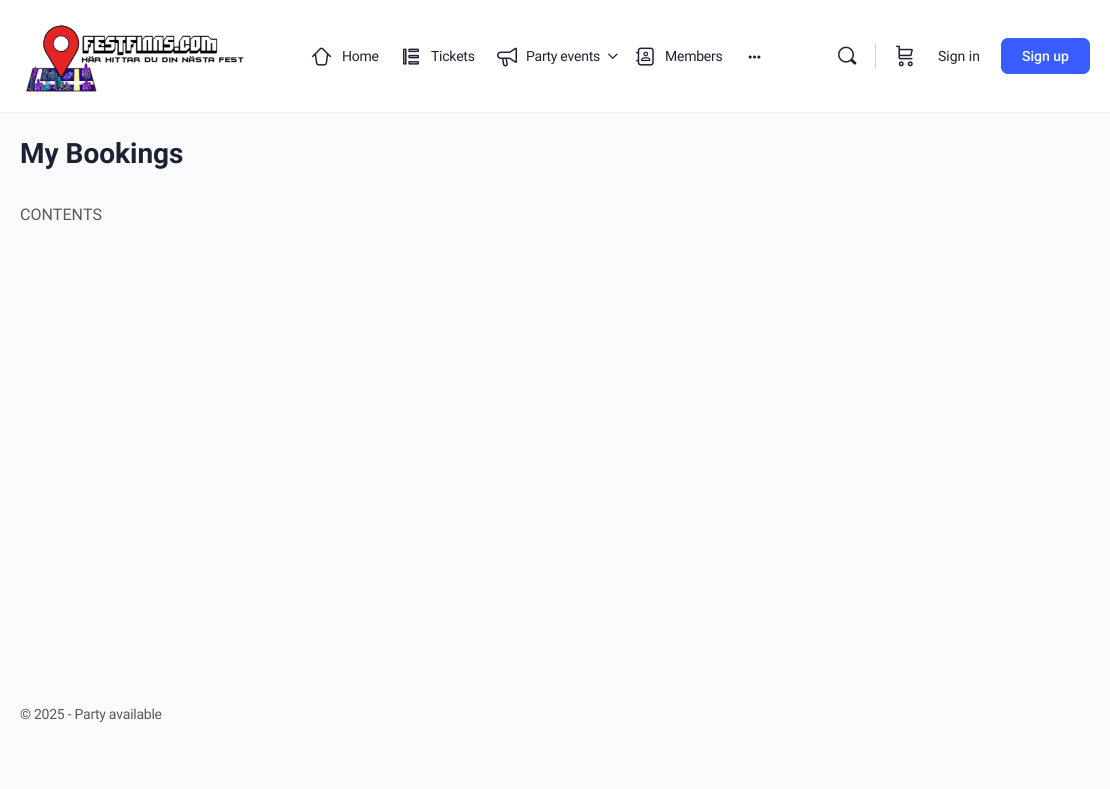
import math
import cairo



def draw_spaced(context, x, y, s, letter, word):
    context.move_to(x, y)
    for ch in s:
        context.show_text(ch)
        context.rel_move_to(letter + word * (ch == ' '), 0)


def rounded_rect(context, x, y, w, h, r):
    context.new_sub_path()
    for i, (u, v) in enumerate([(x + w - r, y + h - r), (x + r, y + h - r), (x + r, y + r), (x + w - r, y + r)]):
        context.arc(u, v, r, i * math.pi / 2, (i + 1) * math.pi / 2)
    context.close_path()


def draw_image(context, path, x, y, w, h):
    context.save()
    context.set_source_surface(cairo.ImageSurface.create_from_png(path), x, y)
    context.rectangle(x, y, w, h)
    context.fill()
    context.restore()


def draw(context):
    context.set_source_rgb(250 / 255, 251 / 255, 253 / 255)
    context.paint()
    context.set_source_rgb(242 / 255, 243 / 255, 246 / 255)
    context.rectangle(0, 112, 1110, 1)
    context.fill()
    context.set_source_rgb(1, 1, 1)
    context.rectangle(0, 0, 1110, 112)
    context.fill()
    draw_image(context, "images/1.png", 26, 25, 218, 67)
    draw_image(context, "images/2.png", 312, 47, 19, 19)
    draw_image(context, "images/3.png", 403, 48, 16, 17)
    draw_image(context, "images/4.png", 497, 47, 20, 20)
    draw_image(context, "images/5.png", 608, 53, 10, 6)
    draw_image(context, "images/6.png", 636, 47, 18, 19)
    draw_image(context, "images/7.png", 748, 55, 13, 4)
    draw_image(context, "images/8.png", 838, 46, 19, 19)
    context.set_source_rgb(210 / 255, 211 / 255, 214 / 255)
    context.rectangle(875, 44, 1, 24)
    context.fill()
    draw_image(context, "images/9.png", 896, 45, 17, 22)
    context.set_source_rgb(56 / 255, 93 / 255, 1)
    rounded_rect(context, 1001.5, 38.5, 88, 35, 6.5)
    context.fill_preserve()
    context.set_line_width(1)
    context.stroke()
    context.select_font_face("Roboto")
    context.set_font_size(14)
    context.set_source_rgb(30 / 255, 33 / 255, 50 / 255)
    draw_spaced(context, 342, 61, "Home", -0.25, 0)
    draw_spaced(context, 431, 61, "Tickets", -0.25, 0)
    draw_spaced(context, 526, 61, "Party events", -0.25, 0)
    draw_spaced(context, 665, 61, "Members", -0.25, 0)
    context.move_to(938, 61)
    context.show_text("Sign in")
    context.select_font_face("Roboto Medium")
    context.set_source_rgb(1, 1, 1)
    context.move_to(1022, 61)
    context.show_text("Sign up")
    context.select_font_face("Roboto", cairo.FontSlant.NORMAL, cairo.FontWeight.BOLD)
    context.set_font_size(28)
    context.set_source_rgb(30 / 255, 33 / 255, 50 / 255)
    context.move_to(20, 163)
    context.show_text("My Bookings")
    context.select_font_face("Roboto")
    context.set_font_size(16)
    context.set_source_rgb(90 / 255, 90 / 255, 90 / 255)
    context.move_to(20, 220)
    context.show_text("CONTENTS")
    context.set_font_size(14)
    draw_spaced(context, 20, 719, "© 2025 - Party available", -0.25, 0)


surface = cairo.ImageSurface(cairo.Format.RGB24, 1110, 789)
context = cairo.Context(surface)
options = cairo.FontOptions()
options.set_hint_metrics(cairo.HintMetrics.OFF)
options.set_hint_style(cairo.HintStyle.NONE)
context.set_font_options(options)
context.set_miter_limit(4)
draw(context)
surface.write_to_png("out.png")
